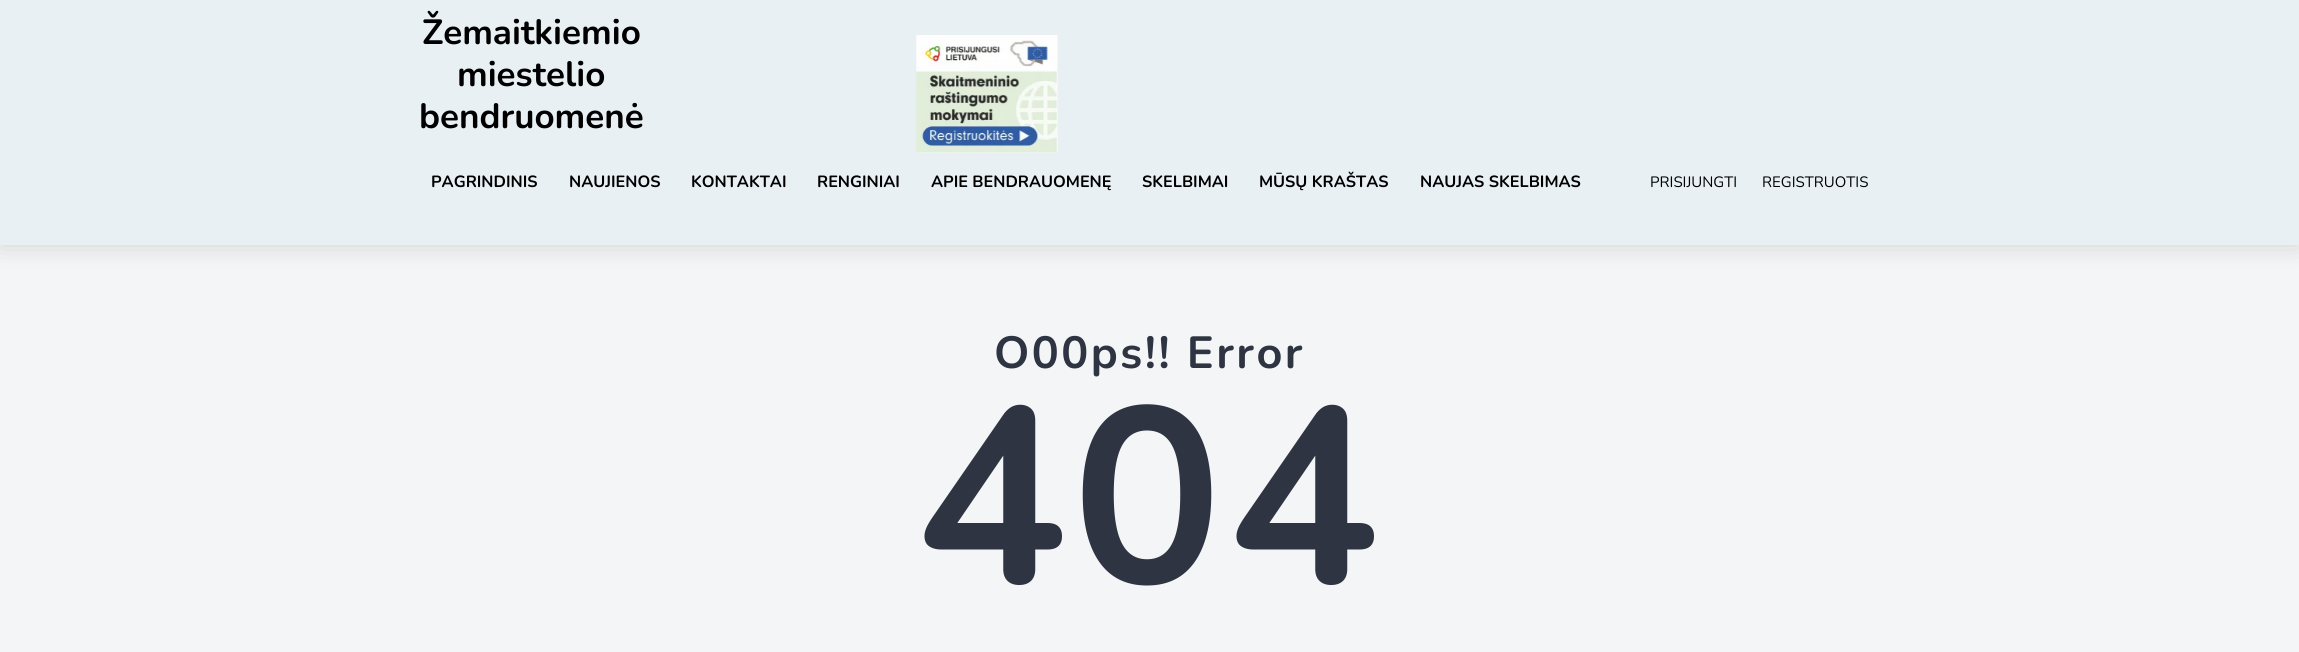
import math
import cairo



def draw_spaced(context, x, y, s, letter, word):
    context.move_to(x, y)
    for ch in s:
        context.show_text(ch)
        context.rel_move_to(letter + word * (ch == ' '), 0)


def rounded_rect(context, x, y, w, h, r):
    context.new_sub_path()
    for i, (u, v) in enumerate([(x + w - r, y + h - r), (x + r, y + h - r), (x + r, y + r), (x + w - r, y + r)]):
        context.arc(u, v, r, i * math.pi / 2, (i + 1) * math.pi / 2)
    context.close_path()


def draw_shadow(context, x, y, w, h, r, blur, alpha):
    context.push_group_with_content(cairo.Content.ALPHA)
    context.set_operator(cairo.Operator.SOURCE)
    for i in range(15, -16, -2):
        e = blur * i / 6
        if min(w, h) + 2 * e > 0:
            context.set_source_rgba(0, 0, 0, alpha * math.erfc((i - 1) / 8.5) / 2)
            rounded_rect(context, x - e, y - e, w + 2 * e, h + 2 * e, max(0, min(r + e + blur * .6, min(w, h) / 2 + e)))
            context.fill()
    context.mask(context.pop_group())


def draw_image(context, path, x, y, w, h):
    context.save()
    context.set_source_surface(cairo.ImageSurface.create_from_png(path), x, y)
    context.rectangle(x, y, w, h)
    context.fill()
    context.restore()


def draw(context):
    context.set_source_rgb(244 / 255, 245 / 255, 246 / 255)
    context.paint()
    context.set_source_rgb(0, 0, 0)
    draw_shadow(context, 0, 0, 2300, 245, 0, 12.5, 0.15)
    context.set_source_rgb(232 / 255, 240 / 255, 244 / 255)
    context.rectangle(0, 0, 2299, 245)
    context.fill()
    draw_image(context, "images/1.png", 916, 35, 142, 118)
    context.select_font_face("Nunito", cairo.FontSlant.NORMAL, cairo.FontWeight.BOLD)
    context.set_font_size(35)
    context.set_source_rgb(0, 0, 0)
    context.move_to(422, 44)
    context.show_text("Žemaitkiemio")
    context.move_to(457, 86)
    context.show_text("miestelio")
    context.move_to(419, 128)
    context.show_text("bendruomenė")
    context.set_font_size(16.25)
    context.move_to(431, 187)
    context.show_text("PAGRINDINIS")
    context.move_to(569, 187)
    context.show_text("NAUJIENOS")
    context.move_to(691, 187)
    context.show_text("KONTAKTAI")
    context.move_to(817, 187)
    context.show_text("RENGINIAI")
    context.move_to(931, 187)
    context.show_text("APIE BENDRAUOMENĘ")
    context.move_to(1142, 187)
    context.show_text("SKELBIMAI")
    context.move_to(1259, 187)
    context.show_text("MŪSŲ KRAŠTAS")
    context.move_to(1420, 187)
    context.show_text("NAUJAS SKELBIMAS")
    context.select_font_face("Nunito")
    context.set_font_size(15)
    context.move_to(1650, 187)
    context.show_text("PRISIJUNGTI")
    context.move_to(1762, 187)
    context.show_text("REGISTRUOTIS")
    context.select_font_face("Nunito", cairo.FontSlant.NORMAL, cairo.FontWeight.BOLD)
    context.set_font_size(45)
    context.set_source_rgb(46 / 255, 52 / 255, 66 / 255)
    draw_spaced(context, 994, 368, "O00ps!! Error", 2.5, 0)
    context.set_font_size(250)
    draw_spaced(context, 916, 583, "404", 6, 0)


surface = cairo.ImageSurface(cairo.Format.RGB24, 2299, 652)
context = cairo.Context(surface)
options = cairo.FontOptions()
options.set_hint_metrics(cairo.HintMetrics.OFF)
options.set_hint_style(cairo.HintStyle.NONE)
context.set_font_options(options)
context.set_miter_limit(4)
draw(context)
surface.write_to_png("out.png")
